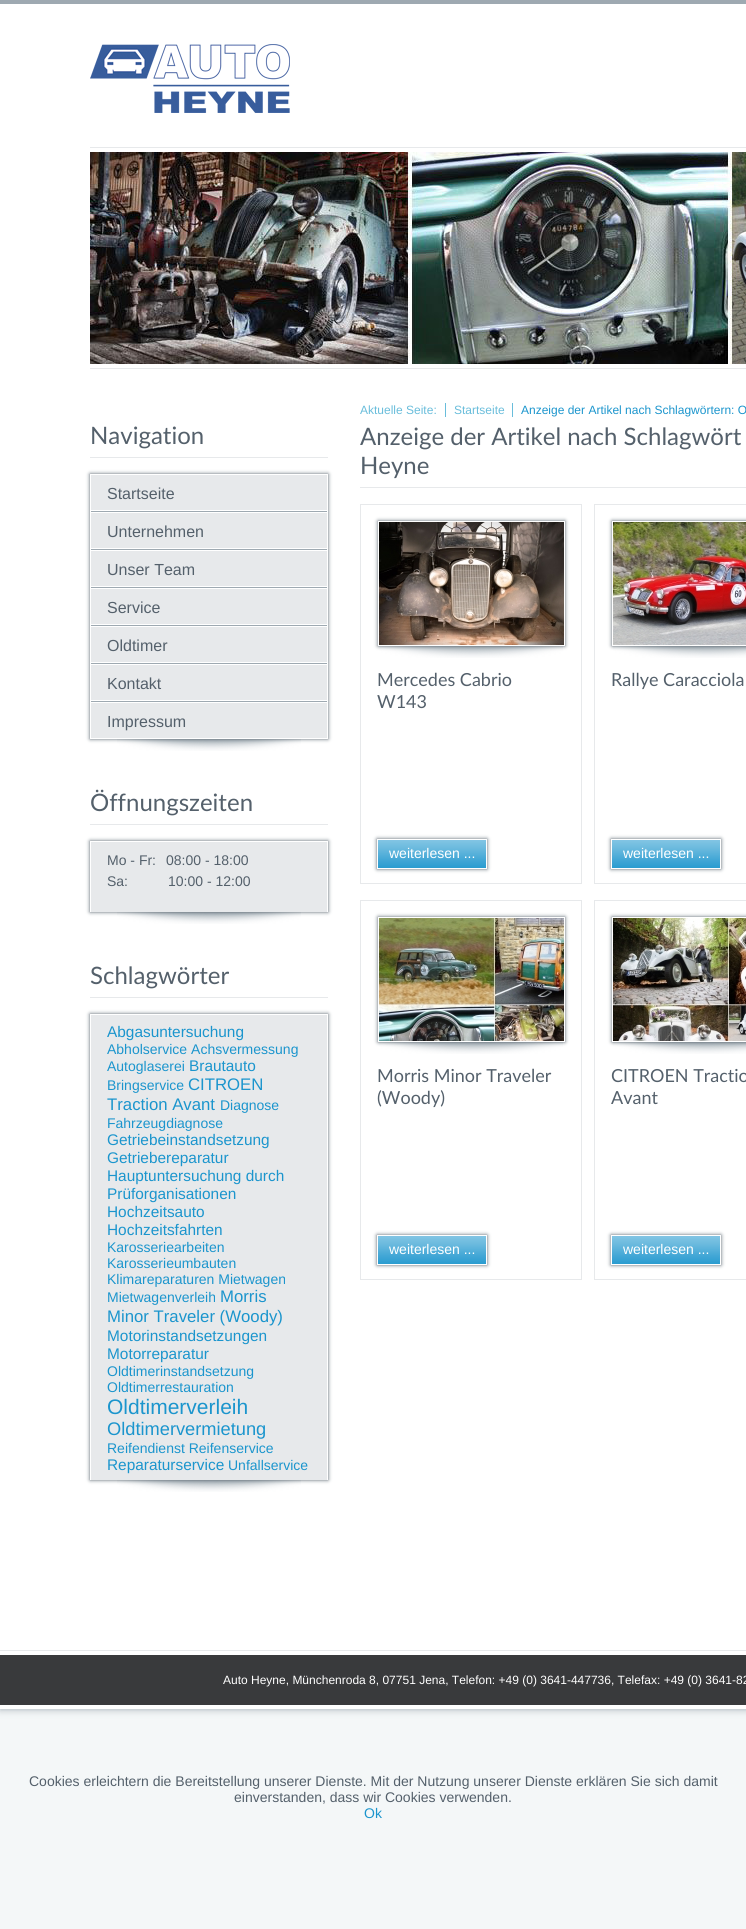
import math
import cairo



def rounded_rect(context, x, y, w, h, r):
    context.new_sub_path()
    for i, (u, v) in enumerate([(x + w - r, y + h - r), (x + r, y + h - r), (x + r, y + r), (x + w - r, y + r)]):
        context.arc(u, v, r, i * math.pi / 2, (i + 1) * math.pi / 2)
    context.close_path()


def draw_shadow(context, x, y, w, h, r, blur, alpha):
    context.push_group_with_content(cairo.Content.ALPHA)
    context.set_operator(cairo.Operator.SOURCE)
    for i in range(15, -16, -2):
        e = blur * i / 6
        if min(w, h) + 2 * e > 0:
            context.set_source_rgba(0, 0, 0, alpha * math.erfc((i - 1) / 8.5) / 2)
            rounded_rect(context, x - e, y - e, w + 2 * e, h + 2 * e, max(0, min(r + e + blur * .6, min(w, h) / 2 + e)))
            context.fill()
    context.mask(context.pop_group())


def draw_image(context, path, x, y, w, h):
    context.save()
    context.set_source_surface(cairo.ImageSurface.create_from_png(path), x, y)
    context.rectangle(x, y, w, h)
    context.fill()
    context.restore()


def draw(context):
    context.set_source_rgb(244 / 255, 247 / 255, 248 / 255)
    context.paint()
    context.set_source_rgb(158 / 255, 169 / 255, 177 / 255)
    draw_shadow(context, 0, 0, 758, 1709, 0, 4, 1)
    context.set_source_rgb(1, 1, 1)
    context.rectangle(0, 4, 746, 1705)
    context.fill()
    context.set_source_rgb(158 / 255, 169 / 255, 177 / 255)
    context.rectangle(0, 0, 746, 4)
    context.fill()
    draw_image(context, "images/1.png", 90, 44, 200, 69)
    context.set_source_rgb(231 / 255, 233 / 255, 235 / 255)
    context.rectangle(90, 147, 656, 1)
    context.fill()
    context.rectangle(90, 368, 656, 1)
    context.fill()
    draw_image(context, "images/2.png", 90, 152, 656, 212)
    context.rectangle(90, 457, 238, 1)
    context.fill()
    draw_image(context, "images/3.png", 117, 739, 184, 12)
    context.set_source_rgb(84 / 255, 96 / 255, 107 / 255)
    draw_shadow(context, 90, 474, 238, 265, 0, 2, 1)
    context.set_source_rgb(1, 1, 1)
    context.rectangle(90, 474, 238, 265)
    context.fill()
    context.set_source_rgb(231 / 255, 233 / 255, 235 / 255)
    context.rectangle(91, 475, 236, 35)
    context.fill()
    context.set_source_rgb(158 / 255, 169 / 255, 177 / 255)
    context.rectangle(91, 511, 236, 1)
    context.fill()
    context.set_source_rgb(231 / 255, 233 / 255, 235 / 255)
    context.rectangle(91, 513, 236, 35)
    context.fill()
    context.set_source_rgb(158 / 255, 169 / 255, 177 / 255)
    context.rectangle(91, 549, 236, 1)
    context.fill()
    context.set_source_rgb(231 / 255, 233 / 255, 235 / 255)
    context.rectangle(91, 551, 236, 35)
    context.fill()
    context.set_source_rgb(158 / 255, 169 / 255, 177 / 255)
    context.rectangle(91, 587, 236, 1)
    context.fill()
    context.set_source_rgb(231 / 255, 233 / 255, 235 / 255)
    context.rectangle(91, 589, 236, 35)
    context.fill()
    context.set_source_rgb(158 / 255, 169 / 255, 177 / 255)
    context.rectangle(91, 625, 236, 1)
    context.fill()
    context.set_source_rgb(231 / 255, 233 / 255, 235 / 255)
    context.rectangle(91, 627, 236, 35)
    context.fill()
    context.set_source_rgb(158 / 255, 169 / 255, 177 / 255)
    context.rectangle(91, 663, 236, 1)
    context.fill()
    context.set_source_rgb(231 / 255, 233 / 255, 235 / 255)
    context.rectangle(91, 665, 236, 35)
    context.fill()
    context.set_source_rgb(158 / 255, 169 / 255, 177 / 255)
    context.rectangle(91, 701, 236, 1)
    context.fill()
    context.set_source_rgb(231 / 255, 233 / 255, 235 / 255)
    context.rectangle(91, 703, 236, 35)
    context.fill()
    context.rectangle(90, 824, 238, 1)
    context.fill()
    draw_image(context, "images/3.png", 117, 912, 184, 12)
    context.set_source_rgb(84 / 255, 96 / 255, 107 / 255)
    draw_shadow(context, 90, 841, 238, 71, 0, 2, 1)
    context.set_source_rgb(1, 1, 1)
    context.rectangle(90, 841, 238, 71)
    context.fill()
    context.set_source_rgb(231 / 255, 233 / 255, 235 / 255)
    context.rectangle(91, 842, 236, 70)
    context.fill()
    context.rectangle(90, 997, 238, 1)
    context.fill()
    draw_image(context, "images/3.png", 117, 1480, 184, 12)
    context.set_source_rgb(84 / 255, 96 / 255, 107 / 255)
    draw_shadow(context, 90, 1014, 238, 466, 0, 2, 1)
    context.set_source_rgb(1, 1, 1)
    context.rectangle(90, 1014, 238, 466)
    context.fill()
    context.set_source_rgb(231 / 255, 233 / 255, 235 / 255)
    context.rectangle(91, 1015, 236, 465)
    context.fill()
    context.set_source_rgb(105 / 255, 189 / 255, 219 / 255)
    context.rectangle(445, 403, 1, 14)
    context.fill()
    context.rectangle(512, 403, 1, 14)
    context.fill()
    context.set_source_rgb(231 / 255, 233 / 255, 235 / 255)
    context.rectangle(360, 487, 386, 1)
    context.fill()
    context.rectangle(360.5, 504.5, 221, 379)
    context.set_line_width(1)
    context.stroke()
    draw_image(context, "images/3.png", 379, 646, 184, 12)
    context.set_source_rgb(84 / 255, 96 / 255, 107 / 255)
    draw_shadow(context, 378, 521, 187, 125, 0, 2, 1)
    context.rectangle(378.5, 521.5, 186, 124)
    context.set_source_rgb(1, 1, 1)
    context.stroke()
    draw_image(context, "images/4.png", 379, 522, 185, 123)
    context.set_source_rgb(84 / 255, 96 / 255, 107 / 255)
    draw_shadow(context, 377, 839, 110, 30, 0, 2, 1)
    gradient = cairo.LinearGradient(432, 840, 432, 868)
    gradient.add_color_stop_rgba(0, 130 / 255, 197 / 255, 228 / 255, 1)
    gradient.add_color_stop_rgba(0.29, 107 / 255, 186 / 255, 222 / 255, 1)
    gradient.add_color_stop_rgba(0.75, 62 / 255, 165 / 255, 213 / 255, 1)
    gradient.add_color_stop_rgba(1, 41 / 255, 156 / 255, 208 / 255, 1)
    context.set_source(gradient)
    context.rectangle(378, 840, 108, 28)
    context.fill()
    context.rectangle(377.5, 839.5, 109, 29)
    context.set_source_rgb(1, 1, 1)
    context.stroke()
    context.rectangle(594.5, 504.5, 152, 379)
    context.set_source_rgb(231 / 255, 233 / 255, 235 / 255)
    context.stroke()
    draw_image(context, "images/5.png", 613, 646, 133, 12)
    context.set_source_rgb(84 / 255, 96 / 255, 107 / 255)
    draw_shadow(context, 612, 521, 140, 125, 0, 2, 1)
    context.rectangle(612.5, 521.5, 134, 124)
    context.set_source_rgb(1, 1, 1)
    context.stroke()
    draw_image(context, "images/6.png", 613, 522, 133, 123)
    context.set_source_rgb(84 / 255, 96 / 255, 107 / 255)
    draw_shadow(context, 611, 839, 110, 30, 0, 2, 1)
    gradient = cairo.LinearGradient(666, 840, 666, 868)
    gradient.add_color_stop_rgba(0, 130 / 255, 197 / 255, 228 / 255, 1)
    gradient.add_color_stop_rgba(0.29, 107 / 255, 186 / 255, 222 / 255, 1)
    gradient.add_color_stop_rgba(0.75, 62 / 255, 165 / 255, 213 / 255, 1)
    gradient.add_color_stop_rgba(1, 41 / 255, 156 / 255, 208 / 255, 1)
    context.set_source(gradient)
    context.rectangle(612, 840, 108, 28)
    context.fill()
    context.rectangle(611.5, 839.5, 109, 29)
    context.set_source_rgb(1, 1, 1)
    context.stroke()
    context.rectangle(360.5, 900.5, 221, 379)
    context.set_source_rgb(231 / 255, 233 / 255, 235 / 255)
    context.stroke()
    draw_image(context, "images/3.png", 379, 1042, 184, 12)
    context.set_source_rgb(84 / 255, 96 / 255, 107 / 255)
    draw_shadow(context, 378, 917, 187, 125, 0, 2, 1)
    context.rectangle(378.5, 917.5, 186, 124)
    context.set_source_rgb(1, 1, 1)
    context.stroke()
    draw_image(context, "images/7.png", 379, 918, 185, 123)
    context.set_source_rgb(84 / 255, 96 / 255, 107 / 255)
    draw_shadow(context, 377, 1235, 110, 30, 0, 2, 1)
    gradient = cairo.LinearGradient(432, 1236, 432, 1264)
    gradient.add_color_stop_rgba(0, 130 / 255, 197 / 255, 228 / 255, 1)
    gradient.add_color_stop_rgba(0.29, 107 / 255, 186 / 255, 222 / 255, 1)
    gradient.add_color_stop_rgba(0.75, 62 / 255, 165 / 255, 213 / 255, 1)
    gradient.add_color_stop_rgba(1, 41 / 255, 156 / 255, 208 / 255, 1)
    context.set_source(gradient)
    context.rectangle(378, 1236, 108, 28)
    context.fill()
    context.rectangle(377.5, 1235.5, 109, 29)
    context.set_source_rgb(1, 1, 1)
    context.stroke()
    context.rectangle(594.5, 900.5, 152, 379)
    context.set_source_rgb(231 / 255, 233 / 255, 235 / 255)
    context.stroke()
    draw_image(context, "images/5.png", 613, 1042, 133, 12)
    context.set_source_rgb(84 / 255, 96 / 255, 107 / 255)
    draw_shadow(context, 612, 917, 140, 125, 0, 2, 1)
    context.rectangle(612.5, 917.5, 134, 124)
    context.set_source_rgb(1, 1, 1)
    context.stroke()
    draw_image(context, "images/8.png", 613, 918, 133, 123)
    context.set_source_rgb(84 / 255, 96 / 255, 107 / 255)
    draw_shadow(context, 611, 1235, 110, 30, 0, 2, 1)
    gradient = cairo.LinearGradient(666, 1236, 666, 1264)
    gradient.add_color_stop_rgba(0, 130 / 255, 197 / 255, 228 / 255, 1)
    gradient.add_color_stop_rgba(0.29, 107 / 255, 186 / 255, 222 / 255, 1)
    gradient.add_color_stop_rgba(0.75, 62 / 255, 165 / 255, 213 / 255, 1)
    gradient.add_color_stop_rgba(1, 41 / 255, 156 / 255, 208 / 255, 1)
    context.set_source(gradient)
    context.rectangle(612, 1236, 108, 28)
    context.fill()
    context.rectangle(611.5, 1235.5, 109, 29)
    context.set_source_rgb(1, 1, 1)
    context.stroke()
    context.set_source_rgb(231 / 255, 233 / 255, 235 / 255)
    context.rectangle(0, 1650, 746, 1)
    context.fill()
    context.set_source_rgb(57 / 255, 58 / 255, 60 / 255)
    context.rectangle(0, 1655, 746, 50)
    context.fill()
    context.select_font_face("Lato")
    context.set_font_size(24)
    context.set_source_rgb(84 / 255, 96 / 255, 107 / 255)
    context.move_to(90, 444)
    context.show_text("Navigation")
    context.select_font_face("Liberation Sans")
    context.set_font_size(16)
    context.move_to(107, 499)
    context.show_text("Startseite")
    context.move_to(107, 537)
    context.show_text("Unternehmen")
    context.move_to(107, 575)
    context.show_text("Unser Team")
    context.move_to(107, 613)
    context.show_text("Service")
    context.move_to(107, 651)
    context.show_text("Oldtimer")
    context.move_to(107, 689)
    context.show_text("Kontakt")
    context.move_to(107, 727)
    context.show_text("Impressum")
    context.select_font_face("Lato")
    context.set_font_size(24)
    context.move_to(90, 811)
    context.show_text("Öffnungszeiten")
    context.select_font_face("Liberation Sans")
    context.set_font_size(14)
    context.move_to(107, 865)
    context.show_text("Mo - Fr:")
    context.move_to(166, 865)
    context.show_text("08:00 - 18:00")
    context.move_to(107, 886)
    context.show_text("Sa:")
    context.move_to(168, 886)
    context.show_text("10:00 - 12:00")
    context.select_font_face("Lato")
    context.set_font_size(24)
    context.move_to(90, 984)
    context.show_text("Schlagwörter")
    context.select_font_face("Liberation Sans")
    context.set_font_size(15.4)
    context.set_source_rgb(27 / 255, 149 / 255, 205 / 255)
    context.move_to(107, 1037)
    context.show_text("Abgasuntersuchung")
    context.set_font_size(14)
    context.move_to(107, 1054)
    context.show_text("Abholservice Achsvermessung")
    context.move_to(107, 1071)
    context.show_text("Autoglaserei")
    context.set_font_size(15.4)
    context.move_to(189, 1071)
    context.show_text("Brautauto")
    context.set_font_size(14)
    context.move_to(107, 1090)
    context.show_text("Bringservice")
    context.set_font_size(16.75)
    context.move_to(188, 1090)
    context.show_text("CITROEN")
    context.move_to(107, 1110)
    context.show_text("Traction Avant")
    context.set_font_size(14)
    context.move_to(220, 1110)
    context.show_text("Diagnose")
    context.move_to(107, 1128)
    context.show_text("Fahrzeugdiagnose")
    context.set_font_size(15.4)
    context.move_to(107, 1145)
    context.show_text("Getriebeinstandsetzung")
    context.move_to(107, 1163)
    context.show_text("Getriebereparatur")
    context.move_to(107, 1181)
    context.show_text("Hauptuntersuchung durch")
    context.move_to(107, 1199)
    context.show_text("Prüforganisationen")
    context.move_to(107, 1217)
    context.show_text("Hochzeitsauto")
    context.move_to(107, 1235)
    context.show_text("Hochzeitsfahrten")
    context.set_font_size(14)
    context.move_to(107, 1252)
    context.show_text("Karosseriearbeiten")
    context.move_to(107, 1268)
    context.show_text("Karosserieumbauten")
    context.move_to(107, 1284)
    context.show_text("Klimareparaturen Mietwagen")
    context.move_to(107, 1302)
    context.show_text("Mietwagenverleih")
    context.set_font_size(16.75)
    context.move_to(220, 1302)
    context.show_text("Morris")
    context.move_to(107, 1322)
    context.show_text("Minor Traveler (Woody)")
    context.set_font_size(15.4)
    context.move_to(107, 1341)
    context.show_text("Motorinstandsetzungen")
    context.move_to(107, 1359)
    context.show_text("Motorreparatur")
    context.set_font_size(14)
    context.move_to(107, 1376)
    context.show_text("Oldtimerinstandsetzung")
    context.move_to(107, 1392)
    context.show_text("Oldtimerrestauration")
    context.set_font_size(21)
    context.move_to(107, 1414)
    context.show_text("Oldtimerverleih")
    context.set_font_size(18.25)
    context.move_to(107, 1435)
    context.show_text("Oldtimervermietung")
    context.set_font_size(14)
    context.move_to(107, 1453)
    context.show_text("Reifendienst Reifenservice")
    context.set_font_size(15.4)
    context.move_to(107, 1470)
    context.show_text("Reparaturservice")
    context.set_font_size(14)
    context.move_to(228, 1470)
    context.show_text("Unfallservice")
    context.set_font_size(12)
    context.set_source_rgb(105 / 255, 189 / 255, 219 / 255)
    context.move_to(360, 414)
    context.show_text("Aktuelle Seite:")
    context.move_to(454, 414)
    context.show_text("Startseite")
    context.set_source_rgb(27 / 255, 149 / 255, 205 / 255)
    context.move_to(521, 414)
    context.show_text("Anzeige der Artikel nach Schlagwörtern: O")
    context.select_font_face("Lato")
    context.set_font_size(24)
    context.set_source_rgb(84 / 255, 96 / 255, 107 / 255)
    context.move_to(360, 445)
    context.show_text("Anzeige der Artikel nach Schlagwört")
    context.move_to(360, 474)
    context.show_text("Heyne")
    context.set_font_size(18)
    context.move_to(377, 686)
    context.show_text("Mercedes Cabrio")
    context.move_to(377, 708)
    context.show_text("W143")
    context.select_font_face("Liberation Sans")
    context.set_font_size(14)
    context.set_source_rgb(1, 1, 1)
    context.move_to(389, 858)
    context.show_text("weiterlesen ...")
    context.select_font_face("Lato")
    context.set_font_size(18)
    context.set_source_rgb(84 / 255, 96 / 255, 107 / 255)
    context.move_to(611, 686)
    context.show_text("Rallye Caracciola")
    context.select_font_face("Liberation Sans")
    context.set_font_size(14)
    context.set_source_rgb(1, 1, 1)
    context.move_to(623, 858)
    context.show_text("weiterlesen ...")
    context.select_font_face("Lato")
    context.set_font_size(18)
    context.set_source_rgb(84 / 255, 96 / 255, 107 / 255)
    context.move_to(377, 1082)
    context.show_text("Morris Minor Traveler")
    context.move_to(377, 1104)
    context.show_text("(Woody)")
    context.select_font_face("Liberation Sans")
    context.set_font_size(14)
    context.set_source_rgb(1, 1, 1)
    context.move_to(389, 1254)
    context.show_text("weiterlesen ...")
    context.select_font_face("Lato")
    context.set_font_size(18)
    context.set_source_rgb(84 / 255, 96 / 255, 107 / 255)
    context.move_to(611, 1082)
    context.show_text("CITROEN Tractio")
    context.move_to(611, 1104)
    context.show_text("Avant")
    context.select_font_face("Liberation Sans")
    context.set_font_size(14)
    context.set_source_rgb(1, 1, 1)
    context.move_to(623, 1254)
    context.show_text("weiterlesen ...")
    context.set_font_size(12)
    context.move_to(223, 1684)
    context.show_text("Auto Heyne, Münchenroda 8, 07751 Jena, Telefon: +49 (0) 3641-447736, Telefax: +49 (0) 3641-82")
    context.set_font_size(14)
    context.set_source_rgb(84 / 255, 96 / 255, 107 / 255)
    context.move_to(29, 1786)
    context.show_text("Cookies erleichtern die Bereitstellung unserer Dienste. Mit der Nutzung unserer Dienste erklären Sie sich damit")
    context.move_to(234, 1802)
    context.show_text("einverstanden, dass wir Cookies verwenden.")
    context.set_source_rgb(27 / 255, 149 / 255, 205 / 255)
    context.move_to(364, 1818)
    context.show_text("Ok")


surface = cairo.ImageSurface(cairo.Format.RGB24, 746, 1929)
context = cairo.Context(surface)
options = cairo.FontOptions()
options.set_hint_metrics(cairo.HintMetrics.OFF)
options.set_hint_style(cairo.HintStyle.NONE)
context.set_font_options(options)
context.set_miter_limit(4)
draw(context)
surface.write_to_png("out.png")
